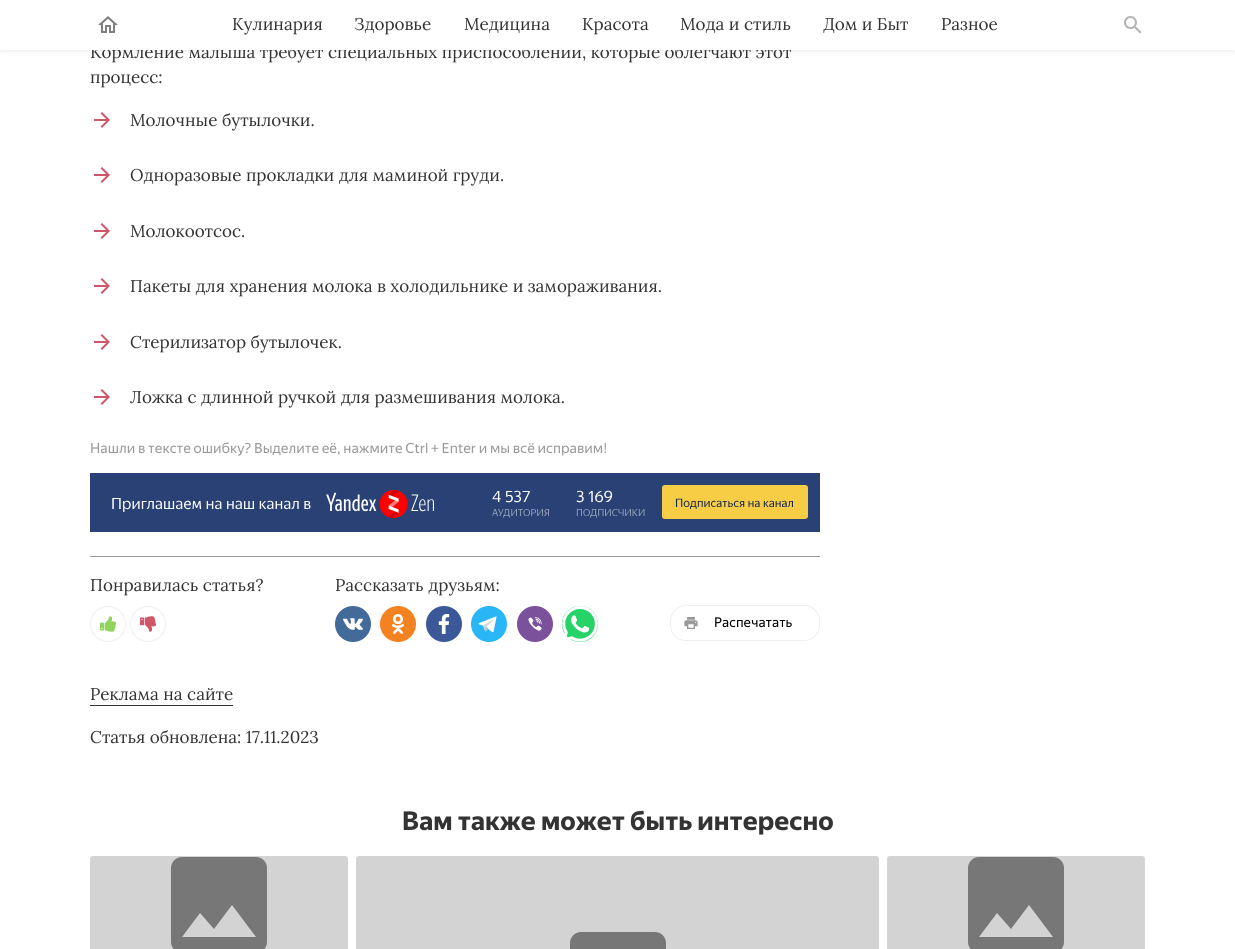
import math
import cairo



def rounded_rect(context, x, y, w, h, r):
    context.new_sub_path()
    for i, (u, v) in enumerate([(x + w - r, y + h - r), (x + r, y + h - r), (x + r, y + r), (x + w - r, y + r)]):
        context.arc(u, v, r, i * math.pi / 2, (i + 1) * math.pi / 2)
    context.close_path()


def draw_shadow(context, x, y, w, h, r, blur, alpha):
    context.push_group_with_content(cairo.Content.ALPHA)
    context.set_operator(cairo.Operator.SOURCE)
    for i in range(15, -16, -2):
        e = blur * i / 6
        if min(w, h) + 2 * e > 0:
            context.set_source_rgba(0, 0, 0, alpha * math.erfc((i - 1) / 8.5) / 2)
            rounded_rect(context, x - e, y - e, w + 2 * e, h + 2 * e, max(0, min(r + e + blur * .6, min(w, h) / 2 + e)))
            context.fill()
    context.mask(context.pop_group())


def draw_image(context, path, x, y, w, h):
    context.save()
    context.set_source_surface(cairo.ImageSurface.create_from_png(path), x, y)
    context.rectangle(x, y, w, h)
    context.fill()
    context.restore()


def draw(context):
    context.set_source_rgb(1, 1, 1)
    context.paint()
    context.set_source_rgb(153 / 255, 153 / 255, 153 / 255)
    draw_shadow(context, 0, 1, 1235, 50, 0, 3, 0.2)
    draw_image(context, "images/3.png", 94, 112, 16, 16)
    draw_image(context, "images/3.png", 94, 167, 16, 16)
    draw_image(context, "images/3.png", 94, 223, 16, 16)
    draw_image(context, "images/3.png", 94, 278, 16, 16)
    draw_image(context, "images/3.png", 94, 334, 16, 16)
    draw_image(context, "images/3.png", 94, 389, 16, 16)
    draw_image(context, "images/4.png", 90, 473, 730, 59)
    context.set_source_rgb(153 / 255, 153 / 255, 153 / 255)
    context.rectangle(90, 556, 730, 1)
    context.fill()
    context.arc(108, 624, 17.5, 0, 2 * math.pi)
    context.set_source_rgb(238 / 255, 238 / 255, 238 / 255)
    context.set_line_width(1)
    context.stroke()
    draw_image(context, "images/5.png", 100, 616, 16, 16)
    context.arc(148, 624, 17.5, 0, 2 * math.pi)
    context.stroke()
    draw_image(context, "images/6.png", 140, 616, 16, 16)
    context.set_source_rgb(66 / 255, 107 / 255, 154 / 255)
    context.arc(353, 624, 18, 0, 2 * math.pi)
    context.fill()
    draw_image(context, "images/7.png", 343, 618, 20, 12)
    context.set_source_rgb(245 / 255, 130 / 255, 32 / 255)
    context.arc(398, 624, 18, 0, 2 * math.pi)
    context.fill()
    draw_image(context, "images/8.png", 392, 614, 12, 20)
    context.set_source_rgb(59 / 255, 89 / 255, 152 / 255)
    context.arc(444, 624, 18, 0, 2 * math.pi)
    context.fill()
    draw_image(context, "images/9.png", 438, 614, 12, 20)
    context.set_source_rgb(41 / 255, 182 / 255, 246 / 255)
    context.arc(489, 624, 18, 0, 2 * math.pi)
    context.fill()
    draw_image(context, "images/10.png", 478, 616, 19, 17)
    context.set_source_rgb(124 / 255, 81 / 255, 155 / 255)
    context.arc(535, 624, 18, 0, 2 * math.pi)
    context.fill()
    draw_image(context, "images/11.png", 528, 617, 14, 14)
    context.set_source_rgb(37 / 255, 211 / 255, 102 / 255)
    context.arc(580, 624, 18, 0, 2 * math.pi)
    context.fill()
    draw_image(context, "images/12.png", 562, 606, 36, 36)
    rounded_rect(context, 670.5, 605.5, 149, 35, 15.5)
    context.set_source_rgb(238 / 255, 238 / 255, 238 / 255)
    context.stroke()
    draw_image(context, "images/13.png", 684, 617, 14, 12)
    context.set_source_rgb(51 / 255, 51 / 255, 51 / 255)
    context.rectangle(90, 705, 143, 1)
    context.fill()
    context.set_source_rgb(211 / 255, 211 / 255, 211 / 255)
    rounded_rect(context, 90, 856, 258, 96, 3)
    context.fill()
    context.set_source_rgb(119 / 255, 119 / 255, 119 / 255)
    context.new_path()
    context.move_to(267, 942)
    context.line_to(267, 868)
    context.curve_to(267, 862, 262, 857, 256, 857)
    context.line_to(182, 857)
    context.curve_to(176, 857, 171, 862, 171, 868)
    context.line_to(171, 942)
    context.curve_to(171, 948, 176, 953, 182, 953)
    context.line_to(256, 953)
    context.curve_to(262, 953, 267, 948, 267, 942)
    context.close_path()
    context.move_to(200, 913)
    context.line_to(214, 929)
    context.line_to(232, 905)
    context.line_to(256, 937)
    context.line_to(182, 937)
    context.close_path()
    context.fill()
    context.set_source_rgb(211 / 255, 211 / 255, 211 / 255)
    rounded_rect(context, 356, 856, 523, 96, 3)
    context.fill()
    context.set_source_rgb(119 / 255, 119 / 255, 119 / 255)
    context.new_path()
    context.move_to(666, 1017)
    context.line_to(666, 943)
    context.curve_to(666, 937, 661, 932, 655, 932)
    context.line_to(581, 932)
    context.curve_to(575, 932, 570, 937, 570, 943)
    context.line_to(570, 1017)
    context.curve_to(570, 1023, 575, 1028, 581, 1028)
    context.line_to(655, 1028)
    context.curve_to(661, 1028, 666, 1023, 666, 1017)
    context.close_path()
    context.move_to(599, 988)
    context.line_to(613, 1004)
    context.line_to(631, 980)
    context.line_to(655, 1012)
    context.line_to(581, 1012)
    context.close_path()
    context.fill()
    context.set_source_rgb(211 / 255, 211 / 255, 211 / 255)
    rounded_rect(context, 887, 856, 258, 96, 3)
    context.fill()
    context.set_source_rgb(119 / 255, 119 / 255, 119 / 255)
    context.new_path()
    context.move_to(1064, 942)
    context.line_to(1064, 868)
    context.curve_to(1064, 862, 1059, 857, 1053, 857)
    context.line_to(979, 857)
    context.curve_to(973, 857, 968, 862, 968, 868)
    context.line_to(968, 942)
    context.curve_to(968, 948, 973, 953, 979, 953)
    context.line_to(1053, 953)
    context.curve_to(1059, 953, 1064, 948, 1064, 942)
    context.close_path()
    context.move_to(997, 913)
    context.line_to(1011, 929)
    context.line_to(1029, 905)
    context.line_to(1053, 937)
    context.line_to(979, 937)
    context.close_path()
    context.fill()
    context.select_font_face("Lora")
    context.set_font_size(17)
    context.set_source_rgb(51 / 255, 51 / 255, 51 / 255)
    context.move_to(90, 58)
    context.show_text("Кормление малыша требует специальных приспособлений, которые облегчают этот")
    context.set_source_rgb(1, 1, 1)
    context.rectangle(0, 0, 1235, 50)
    context.fill()
    context.set_source_rgb(51 / 255, 51 / 255, 51 / 255)
    context.move_to(941, 30)
    context.show_text("Разное")
    context.move_to(823, 30)
    context.show_text("Дом и Быт")
    context.move_to(680, 30)
    context.show_text("Мода и стиль")
    context.move_to(582, 30)
    context.show_text("Красота")
    context.move_to(464, 30)
    context.show_text("Медицина")
    context.move_to(354, 30)
    context.show_text("Здоровье")
    context.move_to(232, 30)
    context.show_text("Кулинария")
    draw_image(context, "images/1.png", 98, 16, 20, 17)
    draw_image(context, "images/2.png", 1124, 16, 18, 18)
    context.move_to(90, 83)
    context.show_text("процесс:")
    context.move_to(130, 126)
    context.show_text("Молочные бутылочки.")
    context.move_to(130, 181)
    context.show_text("Одноразовые прокладки для маминой груди.")
    context.move_to(130, 237)
    context.show_text("Молокоотсос.")
    context.move_to(130, 292)
    context.show_text("Пакеты для хранения молока в холодильнике и замораживания.")
    context.move_to(130, 348)
    context.show_text("Стерилизатор бутылочек.")
    context.move_to(130, 403)
    context.show_text("Ложка с длинной ручкой для размешивания молока.")
    context.select_font_face("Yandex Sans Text")
    context.set_font_size(14)
    context.set_source_rgb(153 / 255, 153 / 255, 153 / 255)
    context.move_to(90, 453)
    context.show_text("Нашли в тексте ошибку? Выделите её, нажмите Ctrl + Enter и мы всё исправим!")
    context.select_font_face("Lora")
    context.set_font_size(17)
    context.set_source_rgb(51 / 255, 51 / 255, 51 / 255)
    context.move_to(90, 591)
    context.show_text("Понравилась статья?")
    context.move_to(335, 591)
    context.show_text("Рассказать друзьям:")
    context.select_font_face("Yandex Sans Text")
    context.set_font_size(13.5)
    context.set_source_rgb(0, 0, 0)
    context.move_to(714, 627)
    context.show_text("Распечатать")
    context.select_font_face("Lora")
    context.set_font_size(17)
    context.set_source_rgb(51 / 255, 51 / 255, 51 / 255)
    context.move_to(90, 700)
    context.show_text("Реклама на сайте")
    context.move_to(90, 743)
    context.show_text("Статья обновлена: 17.11.2023")
    context.select_font_face("Yandex Sans Text", cairo.FontSlant.NORMAL, cairo.FontWeight.BOLD)
    context.set_font_size(26)
    context.move_to(402, 830)
    context.show_text("Вам также может быть интересно")


surface = cairo.ImageSurface(cairo.Format.RGB24, 1235, 949)
context = cairo.Context(surface)
options = cairo.FontOptions()
options.set_hint_metrics(cairo.HintMetrics.OFF)
options.set_hint_style(cairo.HintStyle.NONE)
context.set_font_options(options)
context.set_miter_limit(4)
draw(context)
surface.write_to_png("out.png")
